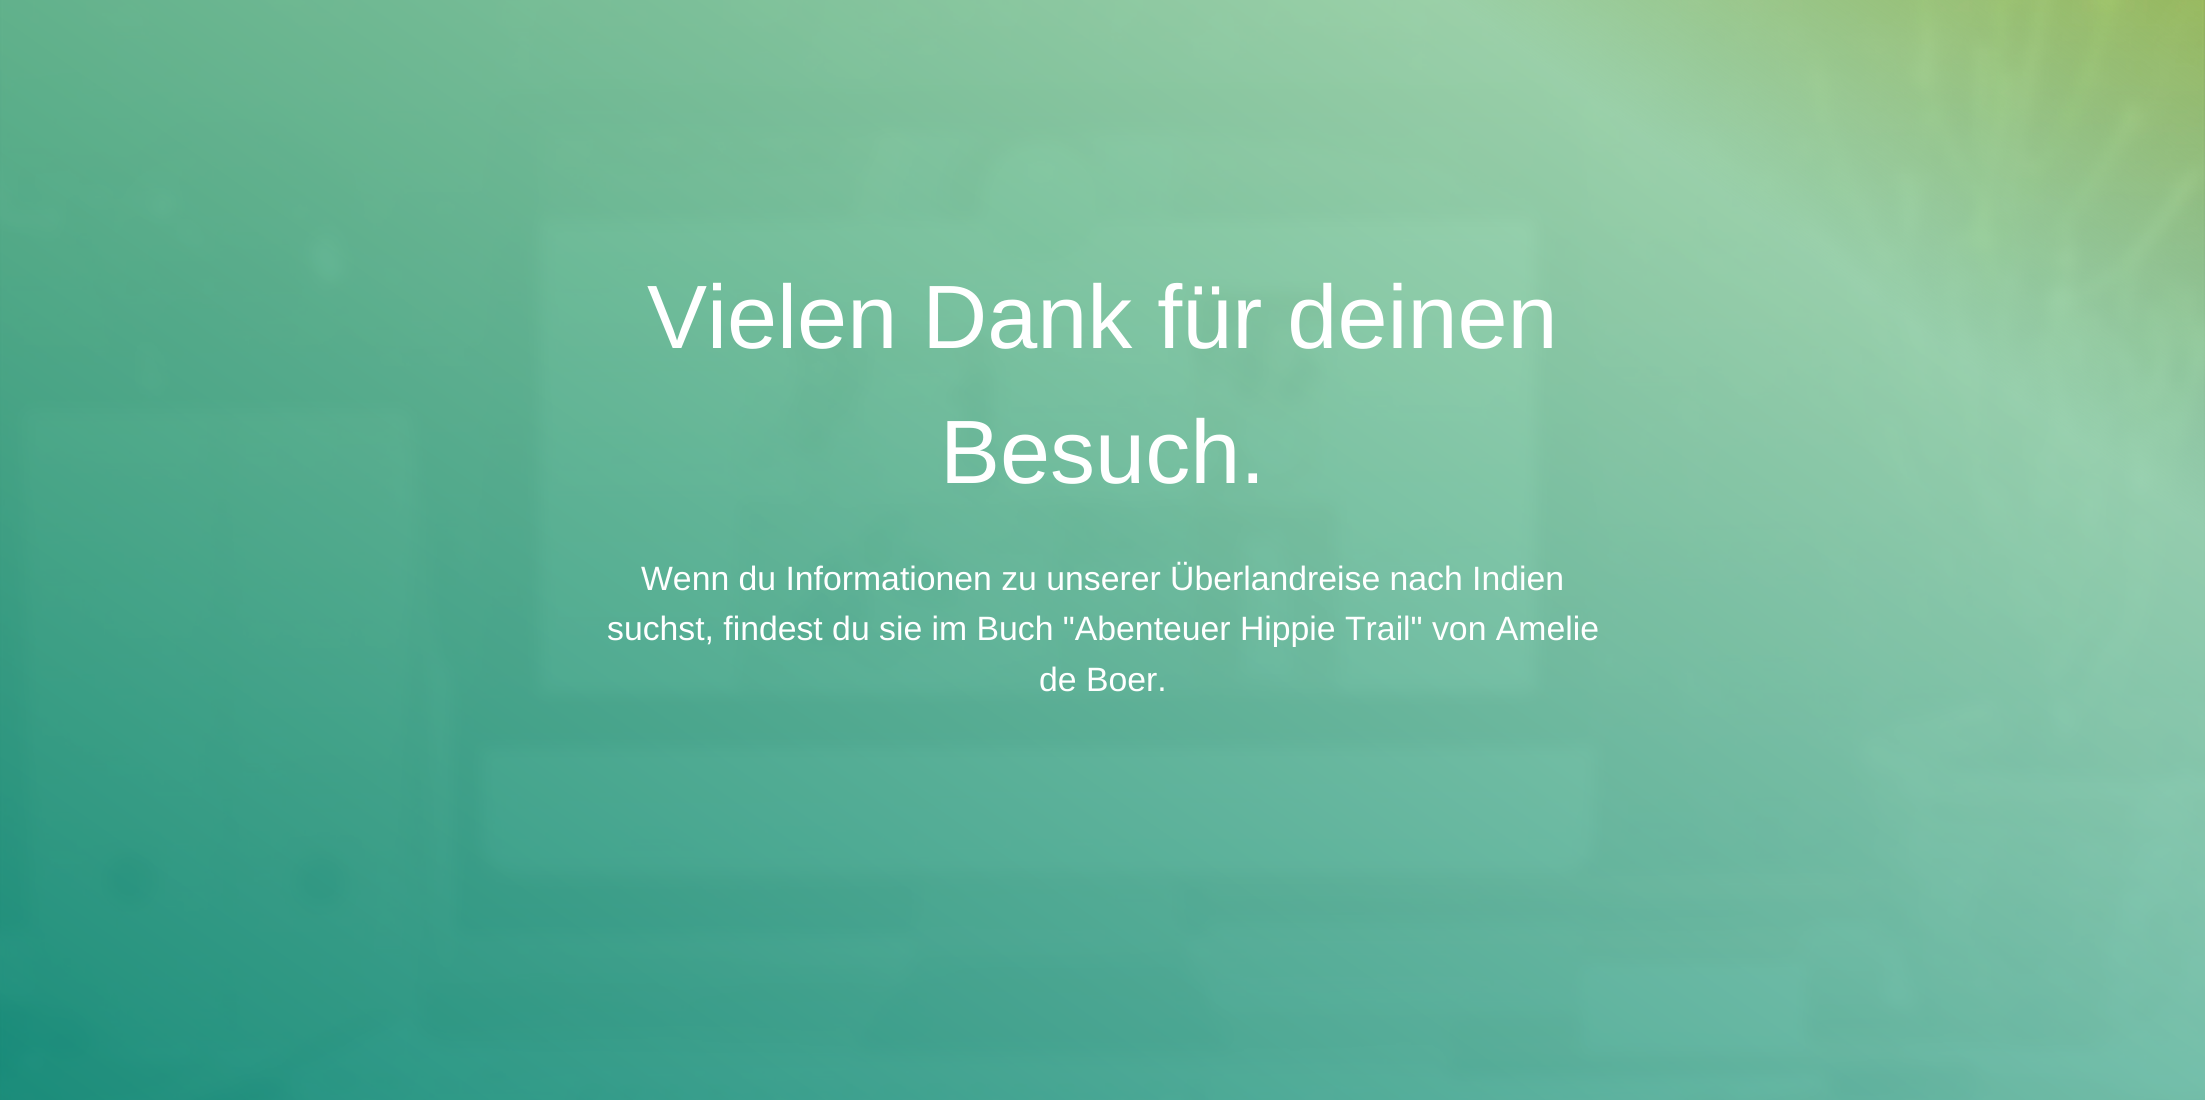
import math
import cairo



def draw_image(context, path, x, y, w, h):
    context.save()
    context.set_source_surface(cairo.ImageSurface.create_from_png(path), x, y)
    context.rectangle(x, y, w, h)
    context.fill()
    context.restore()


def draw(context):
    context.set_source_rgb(1, 1, 1)
    context.paint()
    draw_image(context, "images/1.png", 0, 0, 2205, 1100)
    context.select_font_face("Liberation Sans")
    context.set_font_size(90)
    context.set_source_rgb(1, 1, 1)
    context.move_to(647, 348)
    context.show_text("Vielen Dank für deinen")
    context.move_to(940, 483)
    context.show_text("Besuch.")
    context.set_font_size(33.75)
    context.move_to(641, 590)
    context.show_text("Wenn du Informationen zu unserer Überlandreise nach Indien")
    context.move_to(607, 640)
    context.show_text("suchst, findest du sie im Buch \"Abenteuer Hippie Trail\" von Amelie")
    context.move_to(1039, 691)
    context.show_text("de Boer.")


surface = cairo.ImageSurface(cairo.Format.RGB24, 2205, 1100)
context = cairo.Context(surface)
options = cairo.FontOptions()
options.set_hint_metrics(cairo.HintMetrics.OFF)
options.set_hint_style(cairo.HintStyle.NONE)
context.set_font_options(options)
context.set_miter_limit(4)
draw(context)
surface.write_to_png("out.png")
